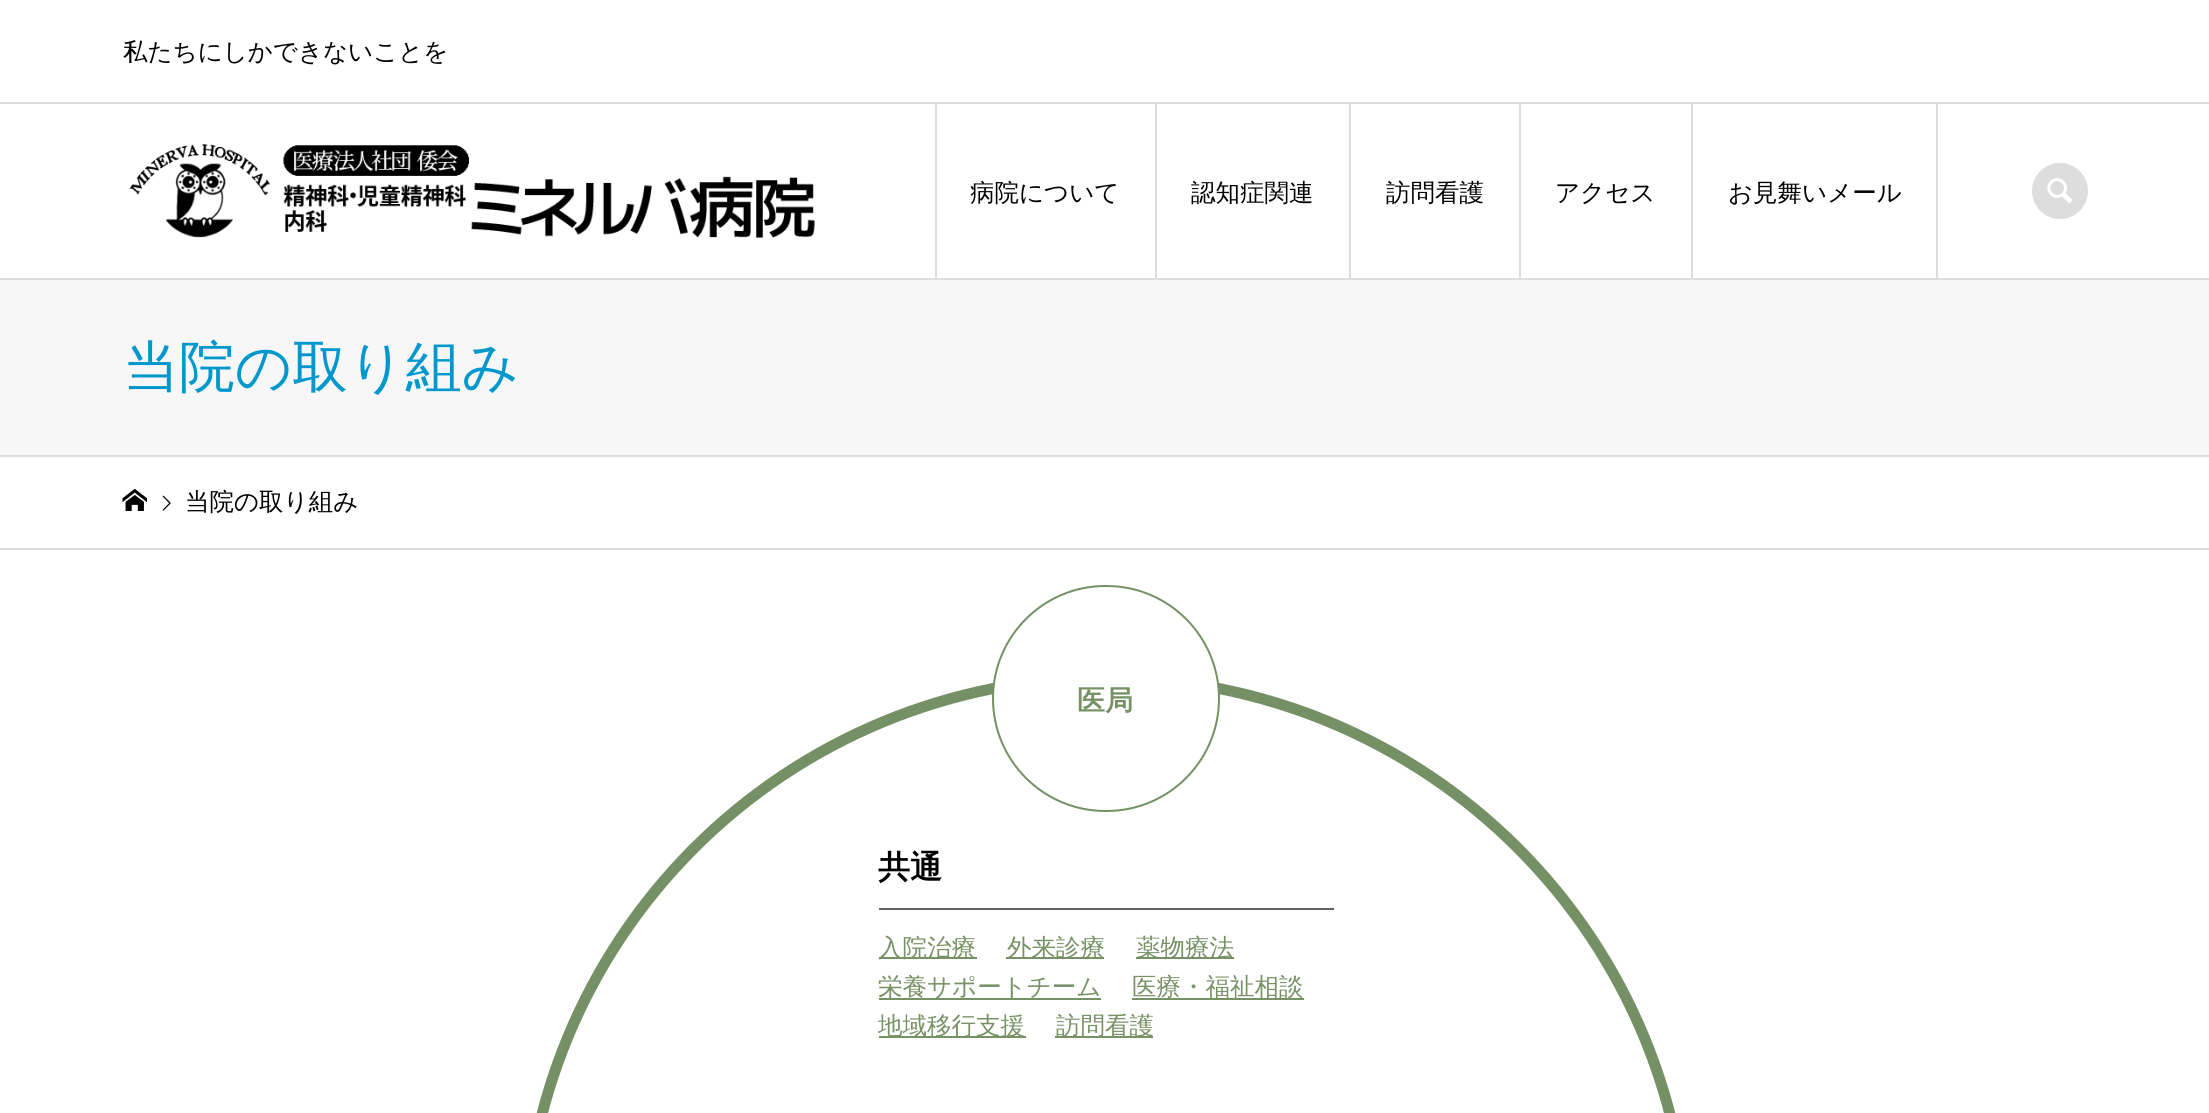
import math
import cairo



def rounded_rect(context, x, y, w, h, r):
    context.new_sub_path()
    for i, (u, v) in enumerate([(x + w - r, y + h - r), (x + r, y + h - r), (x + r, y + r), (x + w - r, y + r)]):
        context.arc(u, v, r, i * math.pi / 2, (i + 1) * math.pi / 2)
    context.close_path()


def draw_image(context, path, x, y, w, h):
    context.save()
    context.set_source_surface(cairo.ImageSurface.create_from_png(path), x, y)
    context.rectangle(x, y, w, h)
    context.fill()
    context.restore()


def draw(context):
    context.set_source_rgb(1, 1, 1)
    context.paint()
    context.set_source_rgb(221 / 255, 221 / 255, 221 / 255)
    context.rectangle(0, 102, 2209, 2)
    context.fill()
    context.rectangle(0, 278, 2209, 2)
    context.fill()
    draw_image(context, "images/1.png", 129, 144, 686, 94)
    context.rectangle(935, 103, 2, 175)
    context.fill()
    context.rectangle(1155, 103, 2, 177)
    context.fill()
    context.rectangle(1349, 103, 2, 177)
    context.fill()
    context.rectangle(1519, 103, 2, 177)
    context.fill()
    context.rectangle(1691, 103, 2, 177)
    context.fill()
    context.rectangle(1936, 103, 2, 177)
    context.fill()
    context.arc(2060, 191, 28, 0, 2 * math.pi)
    context.fill()
    draw_image(context, "images/2.png", 2047, 178, 25, 25)
    context.set_source_rgb(247 / 255, 247 / 255, 247 / 255)
    context.rectangle(0, 280, 2209, 175)
    context.fill()
    context.set_source_rgb(221 / 255, 221 / 255, 221 / 255)
    context.rectangle(0, 455, 2209, 2)
    context.fill()
    context.rectangle(0, 548, 2209, 2)
    context.fill()
    draw_image(context, "images/3.png", 122, 488, 25, 23)
    draw_image(context, "images/4.png", 162, 495, 9, 16)
    rounded_rect(context, 523.5, 677.5, 1165, 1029, 582.5)
    context.set_source_rgb(117 / 255, 144 / 255, 100 / 255)
    context.set_line_width(11)
    context.stroke()
    context.set_source_rgb(1, 1, 1)
    rounded_rect(context, 993, 586, 226, 225, 112.5)
    context.fill_preserve()
    context.set_source_rgb(117 / 255, 144 / 255, 100 / 255)
    context.set_line_width(2)
    context.stroke()
    context.set_source_rgb(98 / 255, 98 / 255, 98 / 255)
    context.rectangle(879, 908, 455, 2)
    context.fill()
    context.set_source_rgb(118 / 255, 145 / 255, 100 / 255)
    context.rectangle(879, 957, 98, 2)
    context.fill()
    context.rectangle(1006, 957, 98, 2)
    context.fill()
    context.rectangle(1136, 957, 98, 2)
    context.fill()
    context.rectangle(879, 998, 222, 2)
    context.fill()
    context.rectangle(1132, 998, 172, 2)
    context.fill()
    context.rectangle(879, 1036, 147, 2)
    context.fill()
    context.rectangle(1055, 1036, 98, 2)
    context.fill()
    context.select_font_face("WenQuanYi Zen Hei Medium")
    context.set_font_size(24.5)
    context.set_source_rgb(0, 0, 0)
    context.move_to(123, 60)
    context.show_text("私たちにしかできないことを")
    context.move_to(970, 201)
    context.show_text("病院について")
    context.move_to(1191, 201)
    context.show_text("認知症関連")
    context.move_to(1386, 201)
    context.show_text("訪問看護")
    context.move_to(1555, 201)
    context.show_text("アクセス")
    context.move_to(1728, 201)
    context.show_text("お見舞いメール")
    context.set_font_size(56)
    context.set_source_rgb(0, 151 / 255, 204 / 255)
    context.move_to(123, 386)
    context.show_text("当院の取り組み")
    context.set_font_size(24.5)
    context.set_source_rgb(0, 0, 0)
    context.move_to(185, 510)
    context.show_text("当院の取り組み")
    context.select_font_face("WenQuanYi Zen Hei", cairo.FontSlant.NORMAL, cairo.FontWeight.BOLD)
    context.set_font_size(28)
    context.set_source_rgb(118 / 255, 145 / 255, 100 / 255)
    context.move_to(1077, 710)
    context.show_text("医局")
    context.set_font_size(32)
    context.set_source_rgb(0, 0, 0)
    context.move_to(878, 878)
    context.show_text("共通")
    context.select_font_face("WenQuanYi Zen Hei Medium")
    context.set_font_size(24.5)
    context.set_source_rgb(118 / 255, 145 / 255, 100 / 255)
    context.move_to(878, 956)
    context.show_text("入院治療")
    context.move_to(1007, 956)
    context.show_text("外来診療")
    context.move_to(1136, 956)
    context.show_text("薬物療法")
    context.move_to(878, 995)
    context.show_text("栄養サポートチーム")
    context.move_to(1132, 995)
    context.show_text("医療・福祉相談")
    context.move_to(878, 1034)
    context.show_text("地域移行支援")
    context.move_to(1056, 1034)
    context.show_text("訪問看護")


surface = cairo.ImageSurface(cairo.Format.RGB24, 2209, 1113)
context = cairo.Context(surface)
options = cairo.FontOptions()
options.set_hint_metrics(cairo.HintMetrics.OFF)
options.set_hint_style(cairo.HintStyle.NONE)
context.set_font_options(options)
context.set_miter_limit(4)
draw(context)
surface.write_to_png("out.png")
